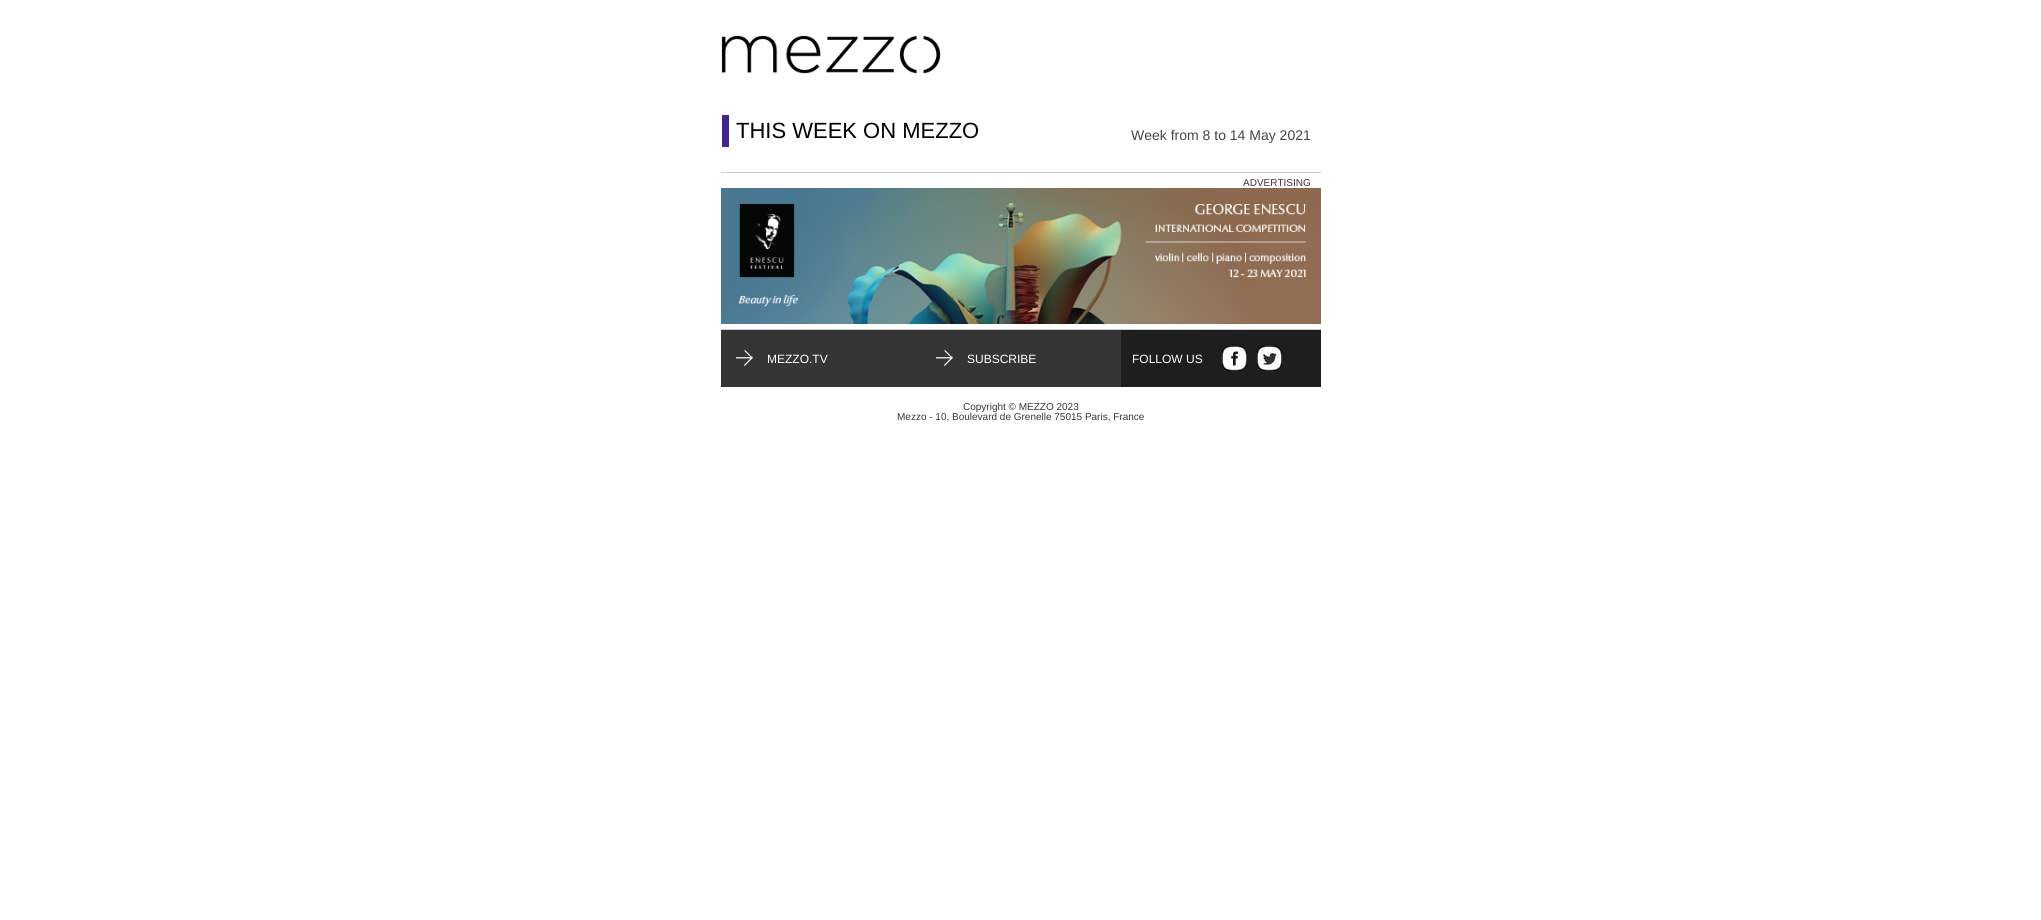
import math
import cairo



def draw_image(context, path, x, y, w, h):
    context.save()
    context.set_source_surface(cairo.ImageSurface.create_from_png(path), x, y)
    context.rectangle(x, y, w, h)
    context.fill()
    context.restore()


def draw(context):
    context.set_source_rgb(1, 1, 1)
    context.paint()
    draw_image(context, "images/1.png", 721, 35, 220, 39)
    context.set_source_rgb(65 / 255, 35 / 255, 145 / 255)
    context.rectangle(722, 115, 7, 32)
    context.fill()
    context.set_source_rgb(204 / 255, 204 / 255, 204 / 255)
    context.rectangle(721, 172, 600, 1)
    context.fill()
    draw_image(context, "images/2.png", 721, 188, 600, 136)
    context.rectangle(721, 329, 600, 1)
    context.fill()
    context.set_source_rgb(53 / 255, 53 / 255, 53 / 255)
    context.rectangle(721, 330, 400, 57)
    context.fill()
    draw_image(context, "images/3.png", 736, 350, 17, 16)
    draw_image(context, "images/3.png", 936, 350, 17, 16)
    context.set_source_rgb(30 / 255, 30 / 255, 30 / 255)
    context.rectangle(1121, 330, 200, 57)
    context.fill()
    draw_image(context, "images/4.png", 1222, 346, 25, 25)
    draw_image(context, "images/5.png", 1257, 346, 25, 25)
    context.select_font_face("Liberation Sans")
    context.set_font_size(22)
    context.set_source_rgb(0, 0, 0)
    context.move_to(736, 138)
    context.show_text("THIS WEEK ON MEZZO")
    context.set_font_size(14)
    context.set_source_rgb(69 / 255, 69 / 255, 69 / 255)
    context.move_to(1131, 140)
    context.show_text("Week from 8 to 14 May 2021")
    context.set_font_size(10)
    context.set_source_rgb(55 / 255, 55 / 255, 55 / 255)
    context.move_to(1243, 186)
    context.show_text("ADVERTISING")
    context.set_font_size(12)
    context.set_source_rgb(1, 1, 1)
    context.move_to(767, 363)
    context.show_text("MEZZO.TV")
    context.move_to(967, 363)
    context.show_text("SUBSCRIBE")
    context.move_to(1132, 363)
    context.show_text("FOLLOW US")
    context.set_font_size(10)
    context.set_source_rgb(55 / 255, 55 / 255, 55 / 255)
    context.move_to(963, 410)
    context.show_text("Copyright © MEZZO 2023")
    context.move_to(897, 420)
    context.show_text("Mezzo - 10, Boulevard de Grenelle 75015 Paris, France")


surface = cairo.ImageSurface(cairo.Format.RGB24, 2041, 920)
context = cairo.Context(surface)
options = cairo.FontOptions()
options.set_hint_metrics(cairo.HintMetrics.OFF)
options.set_hint_style(cairo.HintStyle.NONE)
context.set_font_options(options)
context.set_miter_limit(4)
draw(context)
surface.write_to_png("out.png")
